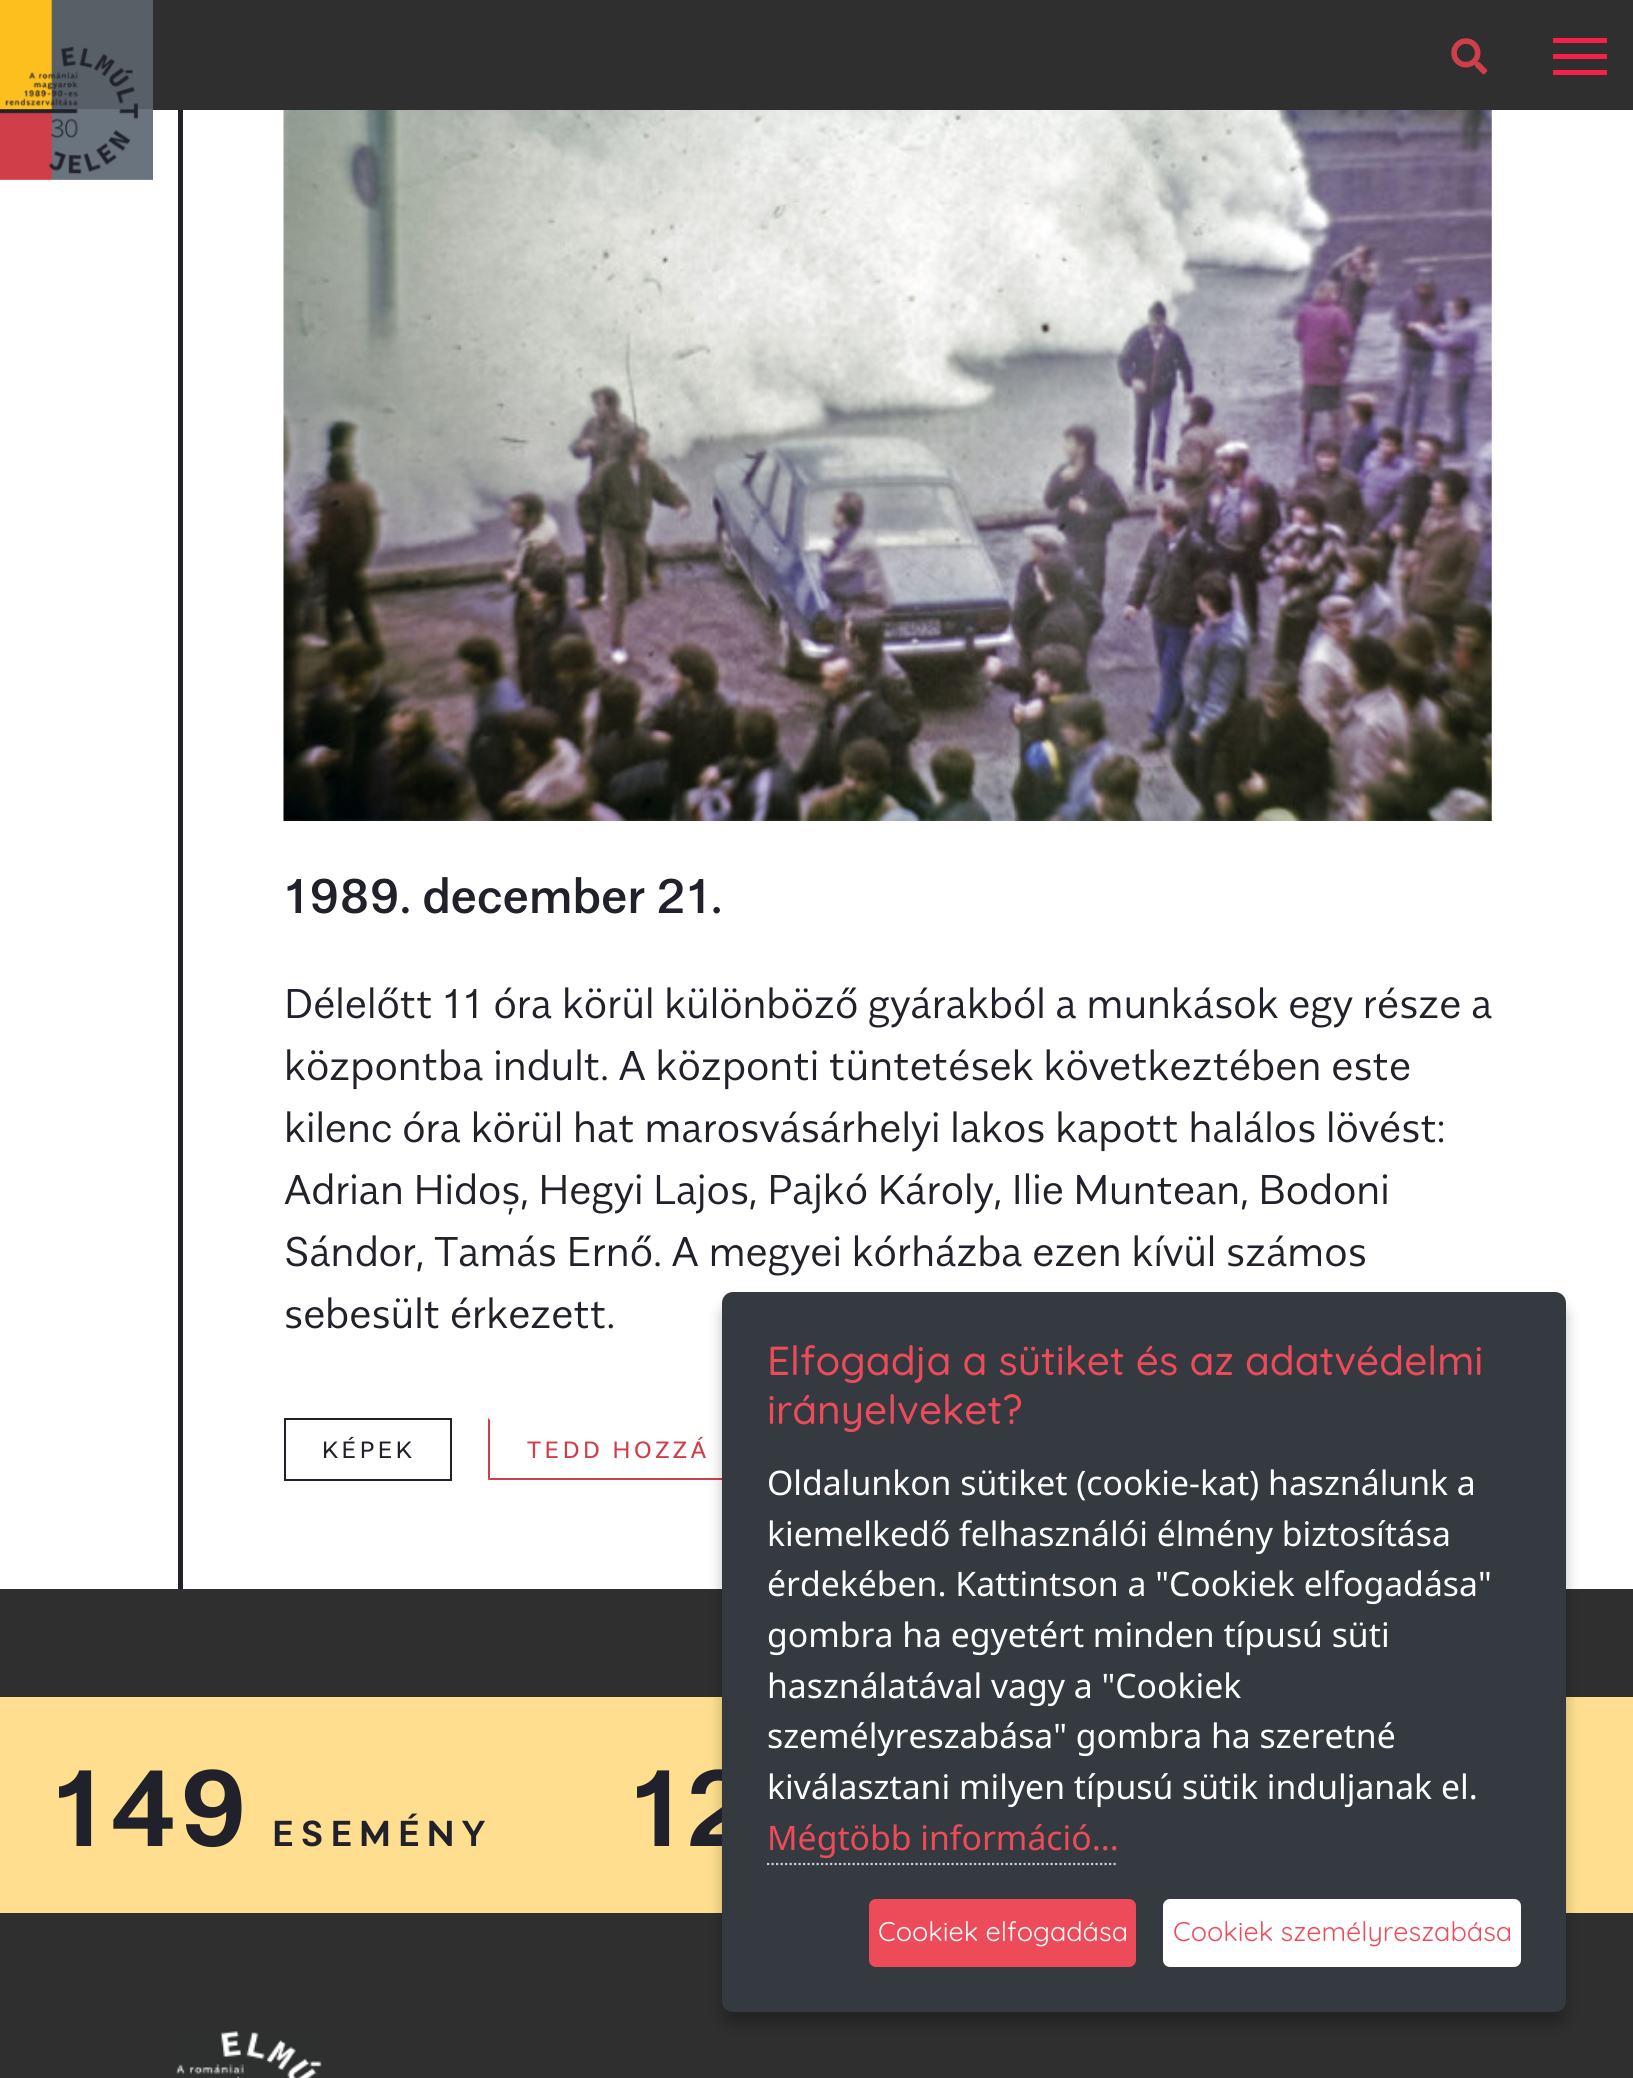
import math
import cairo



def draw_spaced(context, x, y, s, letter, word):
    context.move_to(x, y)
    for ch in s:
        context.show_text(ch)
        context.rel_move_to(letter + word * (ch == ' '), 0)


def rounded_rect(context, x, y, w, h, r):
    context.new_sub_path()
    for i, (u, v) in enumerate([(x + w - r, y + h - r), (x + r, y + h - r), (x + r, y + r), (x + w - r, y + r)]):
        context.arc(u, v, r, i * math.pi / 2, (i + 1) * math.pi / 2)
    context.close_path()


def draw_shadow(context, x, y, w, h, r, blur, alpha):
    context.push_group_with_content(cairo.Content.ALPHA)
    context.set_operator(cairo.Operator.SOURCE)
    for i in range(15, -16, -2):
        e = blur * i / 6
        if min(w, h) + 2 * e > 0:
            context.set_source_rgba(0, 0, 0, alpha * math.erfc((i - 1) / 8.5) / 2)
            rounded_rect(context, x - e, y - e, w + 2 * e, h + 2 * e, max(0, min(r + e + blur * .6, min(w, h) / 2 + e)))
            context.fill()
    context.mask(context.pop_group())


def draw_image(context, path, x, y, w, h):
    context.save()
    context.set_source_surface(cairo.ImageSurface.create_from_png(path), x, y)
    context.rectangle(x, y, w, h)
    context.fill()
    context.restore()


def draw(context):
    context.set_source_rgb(47 / 255, 47 / 255, 47 / 255)
    context.paint()
    context.set_source_rgb(1, 1, 1)
    context.rectangle(0, 110, 1633, 1479)
    context.fill()
    draw_image(context, "images/1.png", 0, 0, 153, 180)
    draw_image(context, "images/2.png", 1451, 38, 37, 37)
    context.set_source_rgb(248 / 255, 32 / 255, 75 / 255)
    context.rectangle(1553, 38, 54, 5)
    context.fill()
    context.rectangle(1553, 54, 54, 5)
    context.fill()
    context.rectangle(1553, 70, 54, 5)
    context.fill()
    context.set_source_rgb(33 / 255, 33 / 255, 43 / 255)
    context.rectangle(178, 110, 5, 1479)
    context.fill()
    draw_image(context, "images/3.png", 283, 110, 1209, 711)
    context.rectangle(285, 1419, 166, 61)
    context.stroke()
    context.set_source_rgb(208 / 255, 62 / 255, 73 / 255)
    context.new_path()
    context.move_to(747, 1480)
    context.line_to(488, 1480)
    context.line_to(490, 1478)
    context.line_to(745, 1478)
    context.close_path()
    context.fill()
    context.new_path()
    context.move_to(488, 1480)
    context.line_to(488, 1418)
    context.line_to(490, 1420)
    context.line_to(490, 1478)
    context.close_path()
    context.fill()
    context.set_source_rgb(1, 223 / 255, 143 / 255)
    context.rectangle(0, 1697, 1633, 216)
    context.fill()
    draw_image(context, "images/4.png", 176, 2031, 146, 47)
    context.set_source_rgb(0, 0, 0)
    draw_shadow(context, 722, 1305, 844, 720, 11, 7, 0.25)
    context.select_font_face("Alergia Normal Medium")
    context.set_font_size(48.5)
    context.set_source_rgb(33 / 255, 33 / 255, 43 / 255)
    context.move_to(284, 913)
    context.show_text("1989. december 21.")
    context.select_font_face("Alergia Normal Light")
    context.set_font_size(41.4)
    context.move_to(284, 1018)
    context.show_text("Délelőtt 11 óra körül különböző gyárakból a munkások egy része a")
    context.move_to(284, 1080)
    context.show_text("központba indult. A központi tüntetések következtében este")
    context.move_to(284, 1142)
    context.show_text("kilenc óra körül hat marosvásárhelyi lakos kapott halálos lövést:")
    context.move_to(284, 1204)
    context.show_text("Adrian Hidoș, Hegyi Lajos, Pajkó Károly, Ilie Muntean, Bodoni")
    context.move_to(284, 1266)
    context.show_text("Sándor, Tamás Ernő. A megyei kórházba ezen kívül számos")
    context.move_to(284, 1328)
    context.show_text("sebesült érkezett.")
    context.select_font_face("Alergia Normal")
    context.set_font_size(23.5)
    draw_spaced(context, 322, 1458, "KÉPEK", 3.6, 0)
    context.set_source_rgb(208 / 255, 62 / 255, 73 / 255)
    draw_spaced(context, 527, 1458, "TEDD HOZZÁ", 3.6, 0)
    context.select_font_face("Alergia Normal SemiBold")
    context.set_font_size(108)
    context.set_source_rgb(33 / 255, 33 / 255, 43 / 255)
    context.move_to(52, 1846)
    context.show_text("149")
    context.set_font_size(36)
    draw_spaced(context, 272, 1846, "ESEMÉNY", 7.25, 0)
    context.set_font_size(108)
    context.move_to(630, 1846)
    context.show_text("12")
    context.set_source_rgb(52 / 255, 58 / 255, 64 / 255)
    rounded_rect(context, 722, 1292, 844, 720, 11)
    context.fill()
    context.select_font_face("Quicksand Medium")
    context.set_font_size(40.5)
    context.set_source_rgb(238 / 255, 75 / 255, 90 / 255)
    context.move_to(767, 1375)
    context.show_text("Elfogadja a sütiket és az adatvédelmi")
    context.move_to(767, 1424)
    context.show_text("irányelveket?")
    context.select_font_face("Noto Sans")
    context.set_font_size(33.75)
    context.set_source_rgb(1, 1, 1)
    context.move_to(767, 1495)
    context.show_text("Oldalunkon sütiket (cookie-kat) használunk a")
    context.move_to(767, 1546)
    context.show_text("kiemelkedő felhasználói élmény biztosítása")
    context.move_to(767, 1596)
    context.show_text("érdekében. Kattintson a \"Cookiek elfogadása\"")
    context.move_to(767, 1647)
    context.show_text("gombra ha egyetért minden típusú süti")
    context.move_to(767, 1698)
    context.show_text("használatával vagy a \"Cookiek")
    context.move_to(767, 1748)
    context.show_text("személyreszabása\" gombra ha szeretné")
    context.move_to(767, 1799)
    context.show_text("kiválasztani milyen típusú sütik induljanak el.")
    context.set_source_rgb(238 / 255, 75 / 255, 90 / 255)
    context.move_to(767, 1850)
    context.show_text("Mégtöbb információ...")
    context.new_path()
    context.move_to(767, 1864)
    context.line_to(1118, 1864)
    context.set_source_rgb(204 / 255, 206 / 255, 207 / 255)
    context.set_line_width(2.2)
    context.set_dash([2.25, 2.25])
    context.stroke()
    context.set_source_rgb(238 / 255, 75 / 255, 90 / 255)
    rounded_rect(context, 869, 1899, 267, 68, 7)
    context.fill()
    context.select_font_face("Quicksand")
    context.set_font_size(27)
    context.set_source_rgb(1, 1, 1)
    context.move_to(878, 1941)
    context.show_text("Cookiek elfogadása")
    rounded_rect(context, 1163, 1899, 358, 68, 7)
    context.fill()
    context.set_source_rgb(238 / 255, 75 / 255, 90 / 255)
    context.move_to(1173, 1941)
    context.show_text("Cookiek személyreszabása")


surface = cairo.ImageSurface(cairo.Format.RGB24, 1633, 2078)
context = cairo.Context(surface)
options = cairo.FontOptions()
options.set_hint_metrics(cairo.HintMetrics.OFF)
options.set_hint_style(cairo.HintStyle.NONE)
context.set_font_options(options)
context.set_miter_limit(4)
draw(context)
surface.write_to_png("out.png")
